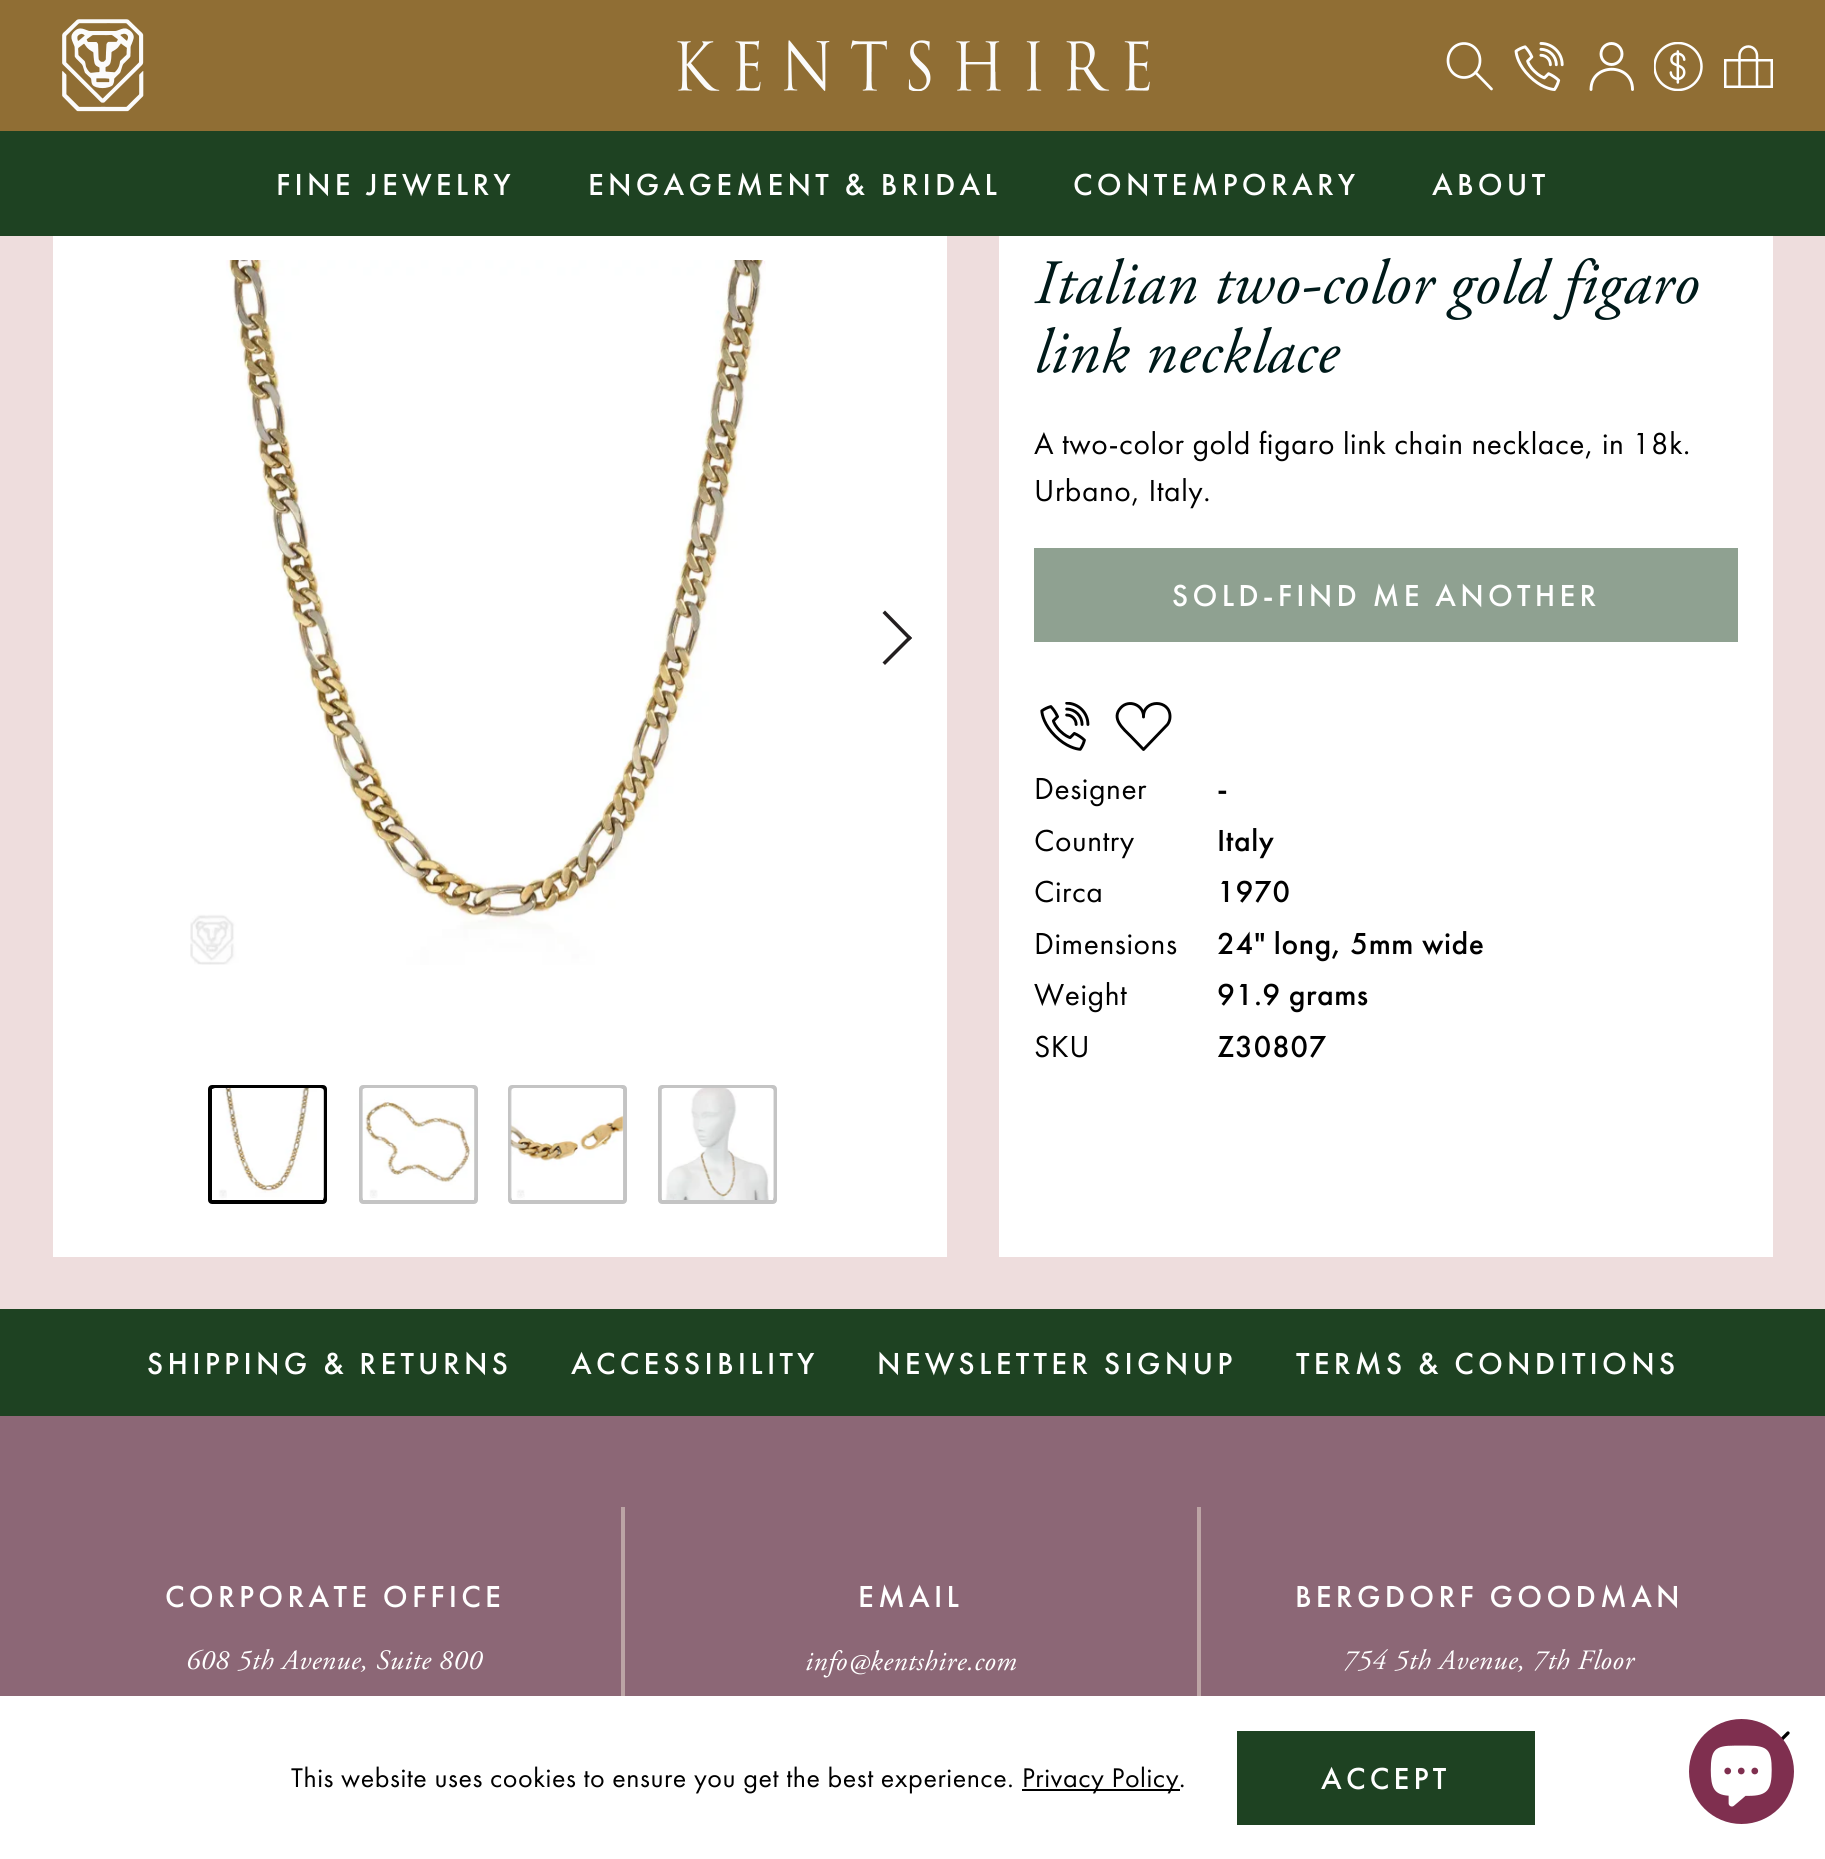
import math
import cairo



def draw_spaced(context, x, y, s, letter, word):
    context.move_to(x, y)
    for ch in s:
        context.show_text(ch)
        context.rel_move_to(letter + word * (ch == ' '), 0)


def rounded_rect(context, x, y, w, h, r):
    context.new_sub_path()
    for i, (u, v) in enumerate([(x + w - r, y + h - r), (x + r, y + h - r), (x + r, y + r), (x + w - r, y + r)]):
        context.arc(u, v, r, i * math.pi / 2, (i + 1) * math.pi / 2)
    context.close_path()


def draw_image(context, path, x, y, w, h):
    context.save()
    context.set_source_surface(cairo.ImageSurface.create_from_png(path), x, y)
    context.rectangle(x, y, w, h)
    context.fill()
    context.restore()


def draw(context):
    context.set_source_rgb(238 / 255, 221 / 255, 221 / 255)
    context.paint()
    context.set_source_rgb(144 / 255, 110 / 255, 52 / 255)
    context.rectangle(0, 0, 1825, 131)
    context.fill()
    draw_image(context, "images/1.png", 62, 19, 82, 93)
    draw_image(context, "images/2.png", 677, 40, 473, 51)
    context.new_path()
    context.move_to(1464, 43.5)
    context.curve_to(1473, 43.5, 1480, 51, 1480, 60.5)
    context.curve_to(1480, 70, 1473, 77.5, 1464, 77.5)
    context.curve_to(1455, 77.5, 1448, 70, 1448, 60.5)
    context.curve_to(1448, 51, 1455, 43.5, 1464, 43.5)
    context.close_path()
    context.set_source_rgb(1, 1, 1)
    context.set_line_width(2.7)
    context.stroke()
    context.new_path()
    context.move_to(1475.5, 72.5)
    context.line_to(1491.5, 89)
    context.set_line_cap(cairo.LineCap.ROUND)
    context.set_line_join(cairo.LineJoin.ROUND)
    context.stroke()
    draw_image(context, "images/3.png", 1514, 42, 50, 49)
    context.arc(1611.5, 54, 10.5, 0, 2 * math.pi)
    context.set_line_width(2.9)
    context.set_line_cap(cairo.LineCap.BUTT)
    context.set_line_join(cairo.LineJoin.MITER)
    context.stroke()
    context.new_path()
    context.move_to(1632.5, 89.5)
    context.curve_to(1632.5, 62.5, 1591, 62.5, 1591, 89.5)
    context.set_line_cap(cairo.LineCap.ROUND)
    context.set_line_join(cairo.LineJoin.ROUND)
    context.stroke()
    draw_image(context, "images/4.png", 1654, 42, 49, 49)
    context.rectangle(1725.25, 60.25, 46.5, 26.5)
    context.set_line_width(2.5)
    context.set_line_cap(cairo.LineCap.BUTT)
    context.set_line_join(cairo.LineJoin.MITER)
    context.stroke()
    context.new_path()
    context.move_to(1739.5, 86.5)
    context.line_to(1739.5, 55.5)
    context.curve_to(1739.5, 50.5, 1743.5, 46.5, 1748.5, 46.5)
    context.curve_to(1753, 46.5, 1757, 50.5, 1757, 55.5)
    context.line_to(1757, 86.5)
    context.set_line_cap(cairo.LineCap.ROUND)
    context.set_line_join(cairo.LineJoin.ROUND)
    context.stroke()
    context.set_source_rgb(30 / 255, 66 / 255, 34 / 255)
    context.rectangle(0, 131, 1825, 105)
    context.fill()
    context.set_source_rgb(1, 1, 1)
    context.rectangle(53, 236, 894, 1021)
    context.fill()
    draw_image(context, "images/5.png", 190, 260, 576, 705)
    context.set_source_rgb(35 / 255, 31 / 255, 32 / 255)
    context.new_path()
    context.move_to(882.5, 613)
    context.line_to(885, 610.5)
    context.line_to(912, 638)
    context.line_to(909.5, 640.5)
    context.close_path()
    context.fill()
    context.new_path()
    context.move_to(882.5, 662.5)
    context.line_to(909.5, 635.5)
    context.line_to(912, 638)
    context.line_to(885, 665)
    context.close_path()
    context.fill()
    rounded_rect(context, 210, 1087, 115, 115, 2)
    context.set_source_rgb(0, 0, 0)
    context.set_line_width(4)
    context.set_line_cap(cairo.LineCap.BUTT)
    context.set_line_join(cairo.LineJoin.MITER)
    context.stroke()
    draw_image(context, "images/6.png", 212, 1088, 112, 112)
    rounded_rect(context, 361, 1087, 115, 115, 2)
    context.set_source_rgb(196 / 255, 196 / 255, 196 / 255)
    context.stroke()
    draw_image(context, "images/7.png", 362, 1088, 113, 111)
    rounded_rect(context, 510, 1087, 115, 115, 2)
    context.stroke()
    draw_image(context, "images/8.png", 510, 1088, 114, 112)
    rounded_rect(context, 660, 1087, 115, 115, 2)
    context.stroke()
    draw_image(context, "images/9.png", 661, 1088, 113, 112)
    context.set_source_rgb(1, 1, 1)
    context.rectangle(999, 236, 774, 1021)
    context.fill()
    context.set_source_rgb(143 / 255, 161 / 255, 145 / 255)
    context.rectangle(1034, 548, 704, 94)
    context.fill()
    draw_image(context, "images/10.png", 1040, 702, 50, 49)
    context.new_path()
    context.move_to(1170, 717)
    context.curve_to(1170.5, 699, 1143, 699, 1143.5, 717)
    context.curve_to(1144, 705, 1129, 699, 1121, 707.5)
    context.curve_to(1110.5, 718.5, 1123.5, 729, 1131, 736.5)
    context.line_to(1143.5, 749.5)
    context.line_to(1167.5, 724.5)
    context.curve_to(1169, 722.5, 1170, 719.5, 1170, 717)
    context.close_path()
    context.set_source_rgb(0, 0, 0)
    context.set_line_width(2.9)
    context.set_line_cap(cairo.LineCap.ROUND)
    context.set_line_join(cairo.LineJoin.ROUND)
    context.stroke()
    context.set_source_rgb(140 / 255, 103 / 255, 118 / 255)
    context.rectangle(0, 1416, 1825, 280)
    context.fill()
    context.set_source_rgb(30 / 255, 66 / 255, 34 / 255)
    context.rectangle(0, 1309, 1825, 107)
    context.fill()
    context.set_source_rgb(188 / 255, 164 / 255, 165 / 255)
    context.rectangle(621, 1507, 4, 189)
    context.fill()
    context.rectangle(1197, 1507, 4, 189)
    context.fill()
    context.set_source_rgb(1, 1, 1)
    context.rectangle(0, 1696, 1825, 163)
    context.fill()
    context.new_path()
    context.move_to(1788, 1733)
    context.line_to(1763, 1758)
    context.set_source_rgb(0, 0, 0)
    context.set_line_width(3.3)
    context.stroke()
    context.rectangle(1022, 1789, 158, 2)
    context.fill()
    context.set_source_rgb(30 / 255, 66 / 255, 34 / 255)
    context.rectangle(1237, 1731, 298, 94)
    context.fill()
    context.set_source_rgb(127 / 255, 47 / 255, 79 / 255)
    context.arc(1741.5, 1771.5, 52.5, 0, 2 * math.pi)
    context.fill()
    draw_image(context, "images/11.png", 1710, 1745, 62, 62)
    context.select_font_face("Futura PT Medium")
    context.set_font_size(31.5)
    context.set_source_rgb(1, 1, 1)
    draw_spaced(context, 276, 195, "FINE JEWELRY", 4.25, 0)
    draw_spaced(context, 588, 195, "ENGAGEMENT & BRIDAL", 4.25, 0)
    draw_spaced(context, 1073, 195, "CONTEMPORARY", 4.25, 0)
    draw_spaced(context, 1432, 195, "ABOUT", 4.25, 0)
    context.select_font_face("Adobe Garamond", cairo.FontSlant.ITALIC)
    context.set_font_size(63)
    context.set_source_rgb(0, 26 / 255, 26 / 255)
    draw_spaced(context, 1034, 303, "Italian two-color gold figaro", 0.55, 0)
    draw_spaced(context, 1034, 372, "link necklace", 0.55, 0)
    context.select_font_face("Futura PT")
    context.set_font_size(31.5)
    context.set_source_rgb(0, 0, 0)
    draw_spaced(context, 1034, 454, "A two-color gold figaro link chain necklace, in 18k.", 0.55, 0)
    draw_spaced(context, 1034, 501, "Urbano, Italy.", 0.55, 0)
    context.select_font_face("Futura PT Medium")
    context.set_source_rgb(1, 1, 1)
    draw_spaced(context, 1172, 606, "SOLD-FIND ME ANOTHER", 4.25, 0)
    context.select_font_face("Futura PT")
    context.set_source_rgb(0, 0, 0)
    draw_spaced(context, 1034, 799, "Designer", 0.55, 0)
    context.select_font_face("Futura PT Medium")
    draw_spaced(context, 1217, 799, "-", 0.55, 0)
    context.select_font_face("Futura PT")
    draw_spaced(context, 1034, 851, "Country", 0.55, 0)
    context.select_font_face("Futura PT Medium")
    draw_spaced(context, 1217, 851, "Italy", 0.55, 0)
    context.select_font_face("Futura PT")
    draw_spaced(context, 1034, 902, "Circa", 0.55, 0)
    context.select_font_face("Futura PT Medium")
    draw_spaced(context, 1217, 902, "1970", 0.55, 0)
    context.select_font_face("Futura PT")
    draw_spaced(context, 1034, 954, "Dimensions", 0.55, 0)
    context.select_font_face("Futura PT Medium")
    draw_spaced(context, 1217, 954, "24\" long, 5mm wide", 0.55, 0)
    context.select_font_face("Futura PT")
    draw_spaced(context, 1034, 1005, "Weight", 0.55, 0)
    context.select_font_face("Futura PT Medium")
    draw_spaced(context, 1217, 1005, "91.9 grams", 0.55, 0)
    context.select_font_face("Futura PT")
    draw_spaced(context, 1034, 1057, "SKU", 0.55, 0)
    context.select_font_face("Futura PT Medium")
    draw_spaced(context, 1217, 1057, "Z30807", 0.55, 0)
    context.set_source_rgb(1, 1, 1)
    draw_spaced(context, 147, 1374, "SHIPPING & RETURNS", 4.25, 0)
    draw_spaced(context, 571, 1374, "ACCESSIBILITY", 4.25, 0)
    draw_spaced(context, 877, 1374, "NEWSLETTER SIGNUP", 4.25, 0)
    draw_spaced(context, 1296, 1374, "TERMS & CONDITIONS", 4.25, 0)
    draw_spaced(context, 165, 1607, "CORPORATE OFFICE", 4.25, 0)
    context.select_font_face("Adobe Garamond", cairo.FontSlant.ITALIC)
    context.set_font_size(28)
    draw_spaced(context, 186, 1669, "608 5th Avenue, Suite 800", 0.55, 0)
    context.select_font_face("Futura PT Medium")
    context.set_font_size(31.5)
    draw_spaced(context, 858, 1607, "EMAIL", 4.25, 0)
    context.select_font_face("Adobe Garamond", cairo.FontSlant.ITALIC)
    context.set_font_size(28)
    draw_spaced(context, 805, 1670, "info@kentshire.com", 0.55, 0)
    context.select_font_face("Futura PT Medium")
    context.set_font_size(31.5)
    draw_spaced(context, 1295, 1607, "BERGDORF GOODMAN", 4.25, 0)
    context.select_font_face("Adobe Garamond", cairo.FontSlant.ITALIC)
    context.set_font_size(28)
    draw_spaced(context, 1343, 1669, "754 5th Avenue, 7th Floor", 0.55, 0)
    context.select_font_face("Futura PT")
    context.set_source_rgb(0, 0, 0)
    draw_spaced(context, 291, 1787, "This website uses cookies to ensure you get the best experience.", 0.55, 0)
    draw_spaced(context, 1022, 1787, "Privacy Policy.", 0.55, 0)
    context.select_font_face("Futura PT Medium")
    context.set_font_size(31.5)
    context.set_source_rgb(1, 1, 1)
    draw_spaced(context, 1321, 1789, "ACCEPT", 4.25, 0)


surface = cairo.ImageSurface(cairo.Format.RGB24, 1825, 1859)
context = cairo.Context(surface)
options = cairo.FontOptions()
options.set_hint_metrics(cairo.HintMetrics.OFF)
options.set_hint_style(cairo.HintStyle.NONE)
context.set_font_options(options)
context.set_miter_limit(4)
draw(context)
surface.write_to_png("out.png")
